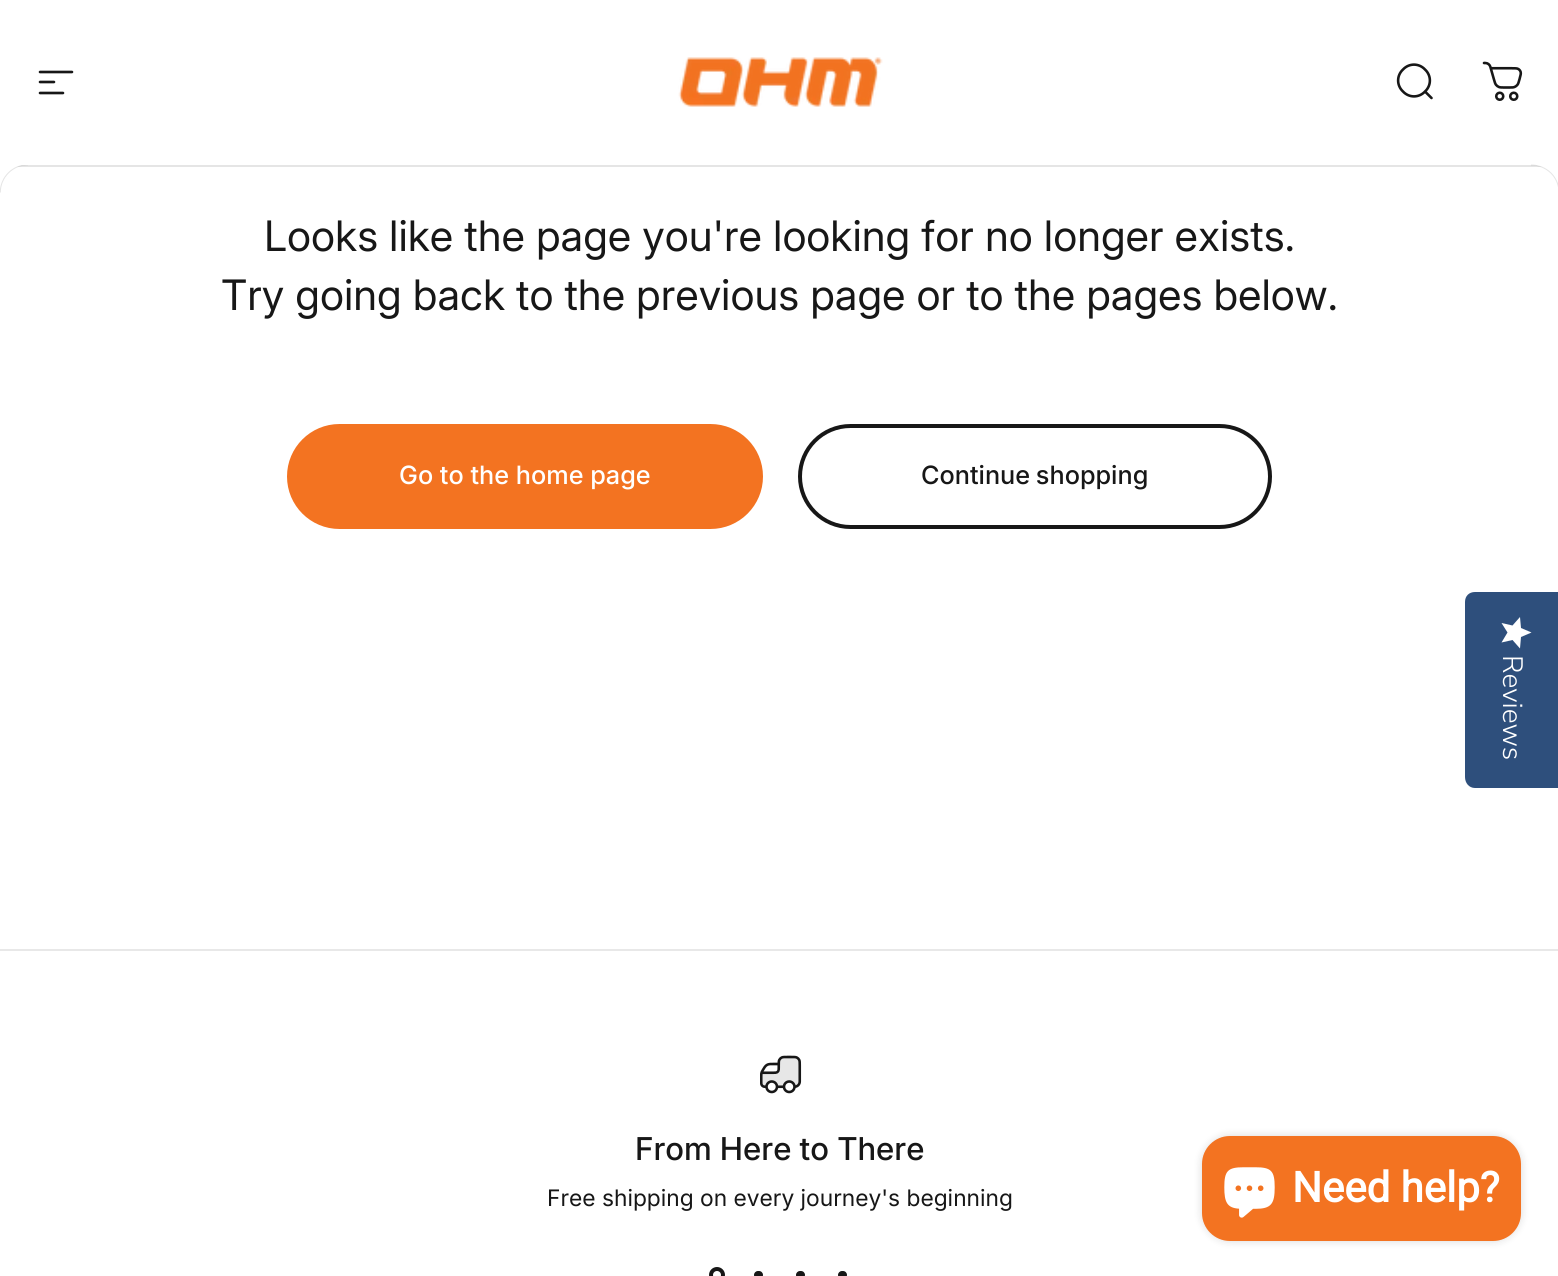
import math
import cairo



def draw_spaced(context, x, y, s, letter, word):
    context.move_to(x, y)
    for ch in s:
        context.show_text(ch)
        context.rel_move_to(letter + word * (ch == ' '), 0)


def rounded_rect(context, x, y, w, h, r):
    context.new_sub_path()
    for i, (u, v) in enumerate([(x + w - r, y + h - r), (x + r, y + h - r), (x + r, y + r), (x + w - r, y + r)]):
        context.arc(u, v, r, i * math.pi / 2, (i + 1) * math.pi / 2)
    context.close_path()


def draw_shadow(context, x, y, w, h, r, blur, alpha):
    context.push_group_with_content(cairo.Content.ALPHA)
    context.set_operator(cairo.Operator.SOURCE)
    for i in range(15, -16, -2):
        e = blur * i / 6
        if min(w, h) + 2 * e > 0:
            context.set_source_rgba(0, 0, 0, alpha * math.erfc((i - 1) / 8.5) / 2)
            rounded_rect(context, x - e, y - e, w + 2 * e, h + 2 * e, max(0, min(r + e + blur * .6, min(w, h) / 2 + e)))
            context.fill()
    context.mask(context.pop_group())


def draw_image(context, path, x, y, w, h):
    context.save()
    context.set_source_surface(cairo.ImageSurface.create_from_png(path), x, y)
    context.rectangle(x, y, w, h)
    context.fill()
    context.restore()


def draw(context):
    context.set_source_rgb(1, 1, 1)
    context.paint()
    context.new_path()
    context.move_to(40, 72)
    context.line_to(72, 72)
    context.move_to(40, 82)
    context.line_to(54, 82)
    context.move_to(40, 93)
    context.line_to(63, 93)
    context.set_source_rgb(23 / 255, 23 / 255, 23 / 255)
    context.set_line_width(2.6)
    context.set_line_cap(cairo.LineCap.ROUND)
    context.stroke()
    draw_image(context, "images/1.png", 678, 57, 205, 50)
    context.new_path()
    context.move_to(1431.5, 98)
    context.line_to(1425, 91.5)
    context.move_to(1425, 91.5)
    context.curve_to(1431.5, 85.5, 1431.5, 75.5, 1425, 69.5)
    context.curve_to(1419, 63, 1409, 63, 1403, 69.5)
    context.curve_to(1396.5, 75.5, 1396.5, 85.5, 1403, 91.5)
    context.curve_to(1409, 98, 1419, 98, 1425, 91.5)
    context.close_path()
    context.stroke()
    draw_image(context, "images/2.png", 1482, 61, 41, 40)
    context.set_source_rgb(1, 1, 1)
    context.rectangle(1531, 164, 5, 1)
    context.fill()
    context.set_source_rgb(229 / 255, 229 / 255, 229 / 255)
    context.rectangle(17, 165, 1525, 2)
    context.fill()
    draw_image(context, "images/3.png", 0, 165, 28, 28)
    context.set_source_rgb(1, 1, 1)
    context.set_fill_rule(cairo.FillRule.EVEN_ODD)
    context.new_path()
    context.move_to(1531, 164.5)
    context.line_to(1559, 164.5)
    context.line_to(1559, 192.5)
    context.curve_to(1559, 177, 1546.5, 165, 1531, 165)
    context.close_path()
    context.fill()
    context.new_path()
    context.move_to(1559, 192.5)
    context.curve_to(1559, 177, 1546.5, 165, 1531, 165)
    context.set_source_rgba(23 / 255, 23 / 255, 23 / 255, 0.11)
    context.set_line_width(1)
    context.set_line_cap(cairo.LineCap.BUTT)
    context.stroke()
    context.set_source_rgb(243 / 255, 115 / 255, 33 / 255)
    rounded_rect(context, 289, 426, 472, 101, 50.5)
    context.fill_preserve()
    context.set_line_width(4)
    context.stroke()
    rounded_rect(context, 800, 426, 470, 101, 50.5)
    context.set_source_rgb(23 / 255, 23 / 255, 23 / 255)
    context.stroke()
    context.set_source_rgb(232 / 255, 232 / 255, 232 / 255)
    context.rectangle(0, 949, 1558, 2)
    context.fill()
    draw_image(context, "images/4.png", 760, 1055, 42, 39)
    context.arc(717, 1275, 6, 0, 2 * math.pi)
    context.set_source_rgb(23 / 255, 23 / 255, 23 / 255)
    context.stroke()
    rounded_rect(context, 754, 1271, 9, 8, 4)
    context.fill()
    rounded_rect(context, 796, 1271, 9, 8, 4)
    context.fill()
    rounded_rect(context, 838, 1271, 9, 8, 4)
    context.fill()
    context.set_source_rgb(46 / 255, 79 / 255, 124 / 255)
    context.set_fill_rule(cairo.FillRule.WINDING)
    context.new_path()
    context.move_to(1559, 592)
    context.line_to(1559, 788)
    context.line_to(1475, 788)
    context.curve_to(1469, 788, 1465, 783, 1465, 777)
    context.line_to(1465, 602)
    context.curve_to(1465, 596, 1469, 592, 1475, 592)
    context.close_path()
    context.fill()
    gradient = cairo.LinearGradient(1531, 617, 1531, 648)
    gradient.add_color_stop_rgba(1, 1, 1, 1, 1)
    gradient.add_color_stop_rgba(1, 234 / 255, 234 / 255, 234 / 255, 1)
    context.set_source(gradient)
    context.new_path()
    context.move_to(1507.5, 632.5)
    context.line_to(1501.5, 642.5)
    context.line_to(1512.5, 640)
    context.line_to(1520, 648.5)
    context.line_to(1521, 637)
    context.line_to(1531.5, 632.5)
    context.line_to(1521, 628)
    context.line_to(1520, 617)
    context.line_to(1512.5, 625.5)
    context.line_to(1501.5, 623)
    context.close_path()
    context.fill()
    context.set_source_rgb(0, 0, 0)
    draw_shadow(context, 1202, 1136, 319, 105, 28, 4.5, 0.15)
    context.set_source_rgb(243 / 255, 115 / 255, 33 / 255)
    rounded_rect(context, 1202, 1136, 319, 105, 28)
    context.fill()
    draw_image(context, "images/5.png", 1224, 1167, 51, 51)
    context.select_font_face("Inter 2")
    context.set_font_size(42)
    context.set_source_rgb(23 / 255, 23 / 255, 23 / 255)
    context.move_to(264, 251)
    context.show_text("Looks like the page you're looking for no longer exists.")
    context.move_to(221, 310)
    context.show_text("Try going back to the previous page or to the pages below.")
    context.select_font_face("Inter 2 Medium")
    context.set_font_size(25.25)
    context.set_source_rgb(1, 1, 1)
    context.move_to(399, 484)
    context.show_text("Go to the home page")
    context.set_source_rgb(23 / 255, 23 / 255, 23 / 255)
    draw_spaced(context, 921, 484, "Continue shopping", 0, -1)
    context.select_font_face("Inter Medium")
    context.set_font_size(31.5)
    context.move_to(635, 1160)
    context.show_text("From Here to There")
    context.select_font_face("Inter")
    context.set_font_size(22.75)
    context.move_to(547, 1206)
    context.show_text("Free shipping on every journey's beginning")
    context.select_font_face("Nunito Sans Light")
    context.set_font_size(28)
    context.set_source_rgb(1, 1, 1)
    context.save()
    context.translate(1503, 655)
    context.rotate(90 * math.pi / 180)
    context.move_to(0, 0)
    context.show_text("Reviews")
    context.restore()
    context.select_font_face("Roboto", cairo.FontSlant.NORMAL, cairo.FontWeight.BOLD)
    context.set_font_size(42)
    context.move_to(1292, 1202)
    context.show_text("Need help?")


surface = cairo.ImageSurface(cairo.Format.RGB24, 1558, 1276)
context = cairo.Context(surface)
options = cairo.FontOptions()
options.set_hint_metrics(cairo.HintMetrics.OFF)
options.set_hint_style(cairo.HintStyle.NONE)
context.set_font_options(options)
context.set_miter_limit(4)
draw(context)
surface.write_to_png("out.png")
